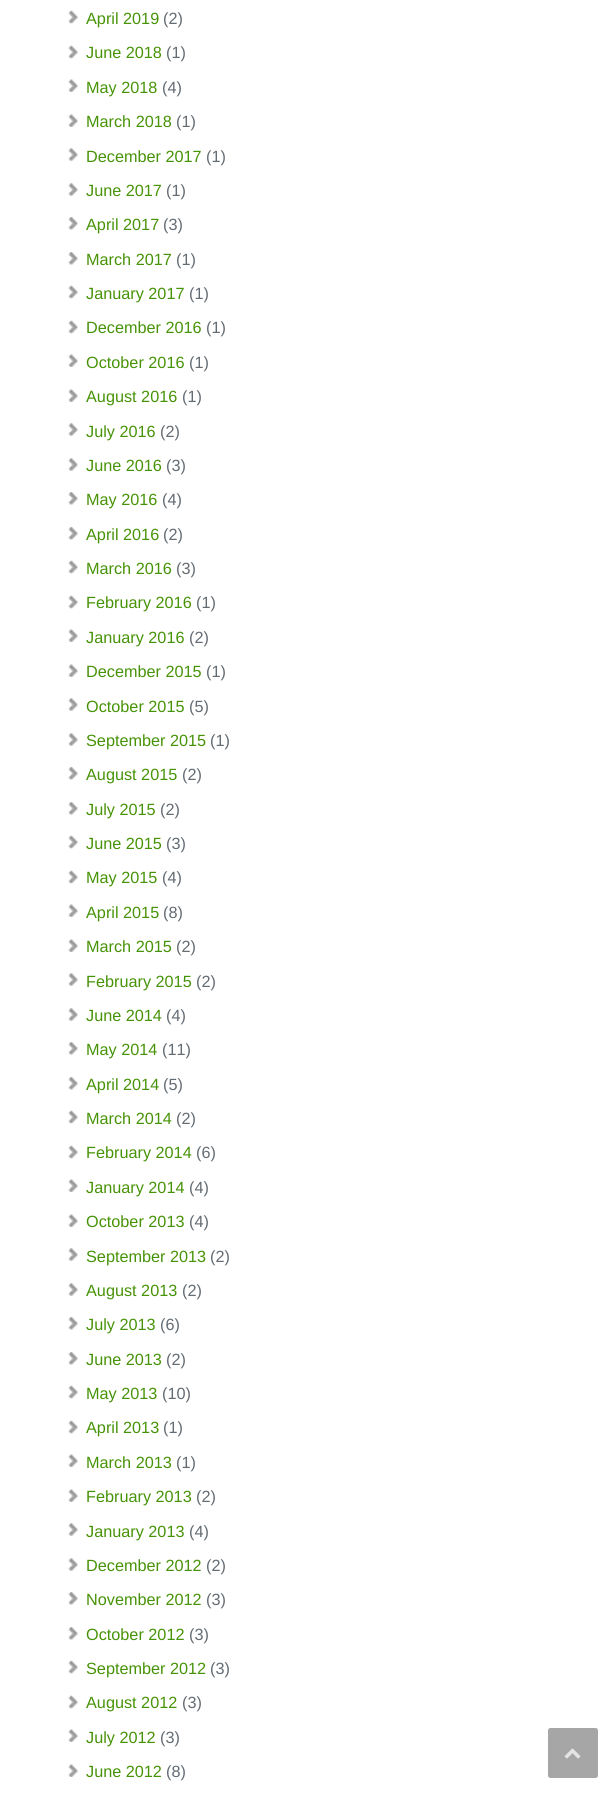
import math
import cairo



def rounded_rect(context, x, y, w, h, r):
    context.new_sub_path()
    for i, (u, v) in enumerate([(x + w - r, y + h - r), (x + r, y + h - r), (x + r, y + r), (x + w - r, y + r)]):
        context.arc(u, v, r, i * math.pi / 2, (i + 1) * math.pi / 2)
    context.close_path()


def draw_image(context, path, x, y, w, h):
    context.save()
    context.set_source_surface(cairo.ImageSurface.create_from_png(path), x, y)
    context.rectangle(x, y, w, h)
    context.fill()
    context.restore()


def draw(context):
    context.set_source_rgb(1, 1, 1)
    context.paint()
    draw_image(context, "images/1.png", 68, 10, 10, 14)
    draw_image(context, "images/1.png", 68, 45, 10, 14)
    draw_image(context, "images/2.png", 68, 79, 10, 13)
    draw_image(context, "images/2.png", 68, 114, 10, 13)
    draw_image(context, "images/3.png", 68, 148, 10, 13)
    draw_image(context, "images/3.png", 68, 183, 10, 13)
    draw_image(context, "images/4.png", 68, 217, 10, 13)
    draw_image(context, "images/4.png", 68, 252, 10, 13)
    draw_image(context, "images/1.png", 68, 285, 10, 14)
    draw_image(context, "images/1.png", 68, 320, 10, 14)
    draw_image(context, "images/2.png", 68, 354, 10, 13)
    draw_image(context, "images/2.png", 68, 389, 10, 13)
    draw_image(context, "images/3.png", 68, 423, 10, 13)
    draw_image(context, "images/3.png", 68, 458, 10, 13)
    draw_image(context, "images/4.png", 68, 492, 10, 13)
    draw_image(context, "images/4.png", 68, 527, 10, 13)
    draw_image(context, "images/1.png", 68, 560, 10, 14)
    draw_image(context, "images/5.png", 68, 595, 10, 14)
    draw_image(context, "images/2.png", 68, 629, 10, 13)
    draw_image(context, "images/2.png", 68, 664, 10, 13)
    draw_image(context, "images/3.png", 68, 698, 10, 13)
    draw_image(context, "images/3.png", 68, 733, 10, 13)
    draw_image(context, "images/4.png", 68, 767, 10, 13)
    draw_image(context, "images/4.png", 68, 802, 10, 13)
    draw_image(context, "images/1.png", 68, 835, 10, 14)
    draw_image(context, "images/1.png", 68, 870, 10, 14)
    draw_image(context, "images/2.png", 68, 904, 10, 13)
    draw_image(context, "images/2.png", 68, 939, 10, 13)
    draw_image(context, "images/3.png", 68, 973, 10, 13)
    draw_image(context, "images/3.png", 68, 1008, 10, 13)
    draw_image(context, "images/4.png", 68, 1042, 10, 13)
    draw_image(context, "images/4.png", 68, 1077, 10, 13)
    draw_image(context, "images/1.png", 68, 1110, 10, 14)
    draw_image(context, "images/1.png", 68, 1145, 10, 14)
    draw_image(context, "images/2.png", 68, 1179, 10, 13)
    draw_image(context, "images/2.png", 68, 1214, 10, 13)
    draw_image(context, "images/3.png", 68, 1248, 10, 13)
    draw_image(context, "images/3.png", 68, 1283, 10, 13)
    draw_image(context, "images/4.png", 68, 1317, 10, 13)
    draw_image(context, "images/4.png", 68, 1352, 10, 13)
    draw_image(context, "images/1.png", 68, 1385, 10, 14)
    draw_image(context, "images/1.png", 68, 1420, 10, 14)
    draw_image(context, "images/2.png", 68, 1454, 10, 13)
    draw_image(context, "images/2.png", 68, 1489, 10, 13)
    draw_image(context, "images/3.png", 68, 1523, 10, 13)
    draw_image(context, "images/3.png", 68, 1558, 10, 13)
    draw_image(context, "images/4.png", 68, 1592, 10, 13)
    draw_image(context, "images/4.png", 68, 1627, 10, 13)
    draw_image(context, "images/1.png", 68, 1660, 10, 14)
    draw_image(context, "images/1.png", 68, 1695, 10, 14)
    draw_image(context, "images/2.png", 68, 1729, 10, 13)
    draw_image(context, "images/2.png", 68, 1764, 10, 13)
    context.set_source_rgb(166 / 255, 166 / 255, 166 / 255)
    rounded_rect(context, 548, 1728, 50, 50, 2.5)
    context.fill()
    draw_image(context, "images/6.png", 564, 1748, 17, 11)
    context.select_font_face("Liberation Sans")
    context.set_font_size(16.25)
    context.set_source_rgb(71 / 255, 147 / 255, 7 / 255)
    context.move_to(86, 24)
    context.show_text("April 2019")
    context.set_source_rgb(99 / 255, 107 / 255, 115 / 255)
    context.move_to(163, 24)
    context.show_text("(2)")
    context.set_source_rgb(71 / 255, 147 / 255, 7 / 255)
    context.move_to(86, 58)
    context.show_text("June 2018")
    context.set_source_rgb(99 / 255, 107 / 255, 115 / 255)
    context.move_to(166, 58)
    context.show_text("(1)")
    context.set_source_rgb(71 / 255, 147 / 255, 7 / 255)
    context.move_to(86, 93)
    context.show_text("May 2018")
    context.set_source_rgb(99 / 255, 107 / 255, 115 / 255)
    context.move_to(162, 93)
    context.show_text("(4)")
    context.set_source_rgb(71 / 255, 147 / 255, 7 / 255)
    context.move_to(86, 127)
    context.show_text("March 2018")
    context.set_source_rgb(99 / 255, 107 / 255, 115 / 255)
    context.move_to(176, 127)
    context.show_text("(1)")
    context.set_source_rgb(71 / 255, 147 / 255, 7 / 255)
    context.move_to(86, 162)
    context.show_text("December 2017")
    context.set_source_rgb(99 / 255, 107 / 255, 115 / 255)
    context.move_to(206, 162)
    context.show_text("(1)")
    context.set_source_rgb(71 / 255, 147 / 255, 7 / 255)
    context.move_to(86, 196)
    context.show_text("June 2017")
    context.set_source_rgb(99 / 255, 107 / 255, 115 / 255)
    context.move_to(166, 196)
    context.show_text("(1)")
    context.set_source_rgb(71 / 255, 147 / 255, 7 / 255)
    context.move_to(86, 230)
    context.show_text("April 2017")
    context.set_source_rgb(99 / 255, 107 / 255, 115 / 255)
    context.move_to(163, 230)
    context.show_text("(3)")
    context.set_source_rgb(71 / 255, 147 / 255, 7 / 255)
    context.move_to(86, 265)
    context.show_text("March 2017")
    context.set_source_rgb(99 / 255, 107 / 255, 115 / 255)
    context.move_to(176, 265)
    context.show_text("(1)")
    context.set_source_rgb(71 / 255, 147 / 255, 7 / 255)
    context.move_to(86, 299)
    context.show_text("January 2017")
    context.set_source_rgb(99 / 255, 107 / 255, 115 / 255)
    context.move_to(189, 299)
    context.show_text("(1)")
    context.set_source_rgb(71 / 255, 147 / 255, 7 / 255)
    context.move_to(86, 333)
    context.show_text("December 2016")
    context.set_source_rgb(99 / 255, 107 / 255, 115 / 255)
    context.move_to(206, 333)
    context.show_text("(1)")
    context.set_source_rgb(71 / 255, 147 / 255, 7 / 255)
    context.move_to(86, 368)
    context.show_text("October 2016")
    context.set_source_rgb(99 / 255, 107 / 255, 115 / 255)
    context.move_to(189, 368)
    context.show_text("(1)")
    context.set_source_rgb(71 / 255, 147 / 255, 7 / 255)
    context.move_to(86, 402)
    context.show_text("August 2016")
    context.set_source_rgb(99 / 255, 107 / 255, 115 / 255)
    context.move_to(182, 402)
    context.show_text("(1)")
    context.set_source_rgb(71 / 255, 147 / 255, 7 / 255)
    context.move_to(86, 437)
    context.show_text("July 2016")
    context.set_source_rgb(99 / 255, 107 / 255, 115 / 255)
    context.move_to(160, 437)
    context.show_text("(2)")
    context.set_source_rgb(71 / 255, 147 / 255, 7 / 255)
    context.move_to(86, 471)
    context.show_text("June 2016")
    context.set_source_rgb(99 / 255, 107 / 255, 115 / 255)
    context.move_to(166, 471)
    context.show_text("(3)")
    context.set_source_rgb(71 / 255, 147 / 255, 7 / 255)
    context.move_to(86, 505)
    context.show_text("May 2016")
    context.set_source_rgb(99 / 255, 107 / 255, 115 / 255)
    context.move_to(162, 505)
    context.show_text("(4)")
    context.set_source_rgb(71 / 255, 147 / 255, 7 / 255)
    context.move_to(86, 540)
    context.show_text("April 2016")
    context.set_source_rgb(99 / 255, 107 / 255, 115 / 255)
    context.move_to(163, 540)
    context.show_text("(2)")
    context.set_source_rgb(71 / 255, 147 / 255, 7 / 255)
    context.move_to(86, 574)
    context.show_text("March 2016")
    context.set_source_rgb(99 / 255, 107 / 255, 115 / 255)
    context.move_to(176, 574)
    context.show_text("(3)")
    context.set_source_rgb(71 / 255, 147 / 255, 7 / 255)
    context.move_to(86, 608)
    context.show_text("February 2016")
    context.set_source_rgb(99 / 255, 107 / 255, 115 / 255)
    context.move_to(196, 608)
    context.show_text("(1)")
    context.set_source_rgb(71 / 255, 147 / 255, 7 / 255)
    context.move_to(86, 643)
    context.show_text("January 2016")
    context.set_source_rgb(99 / 255, 107 / 255, 115 / 255)
    context.move_to(189, 643)
    context.show_text("(2)")
    context.set_source_rgb(71 / 255, 147 / 255, 7 / 255)
    context.move_to(86, 677)
    context.show_text("December 2015")
    context.set_source_rgb(99 / 255, 107 / 255, 115 / 255)
    context.move_to(206, 677)
    context.show_text("(1)")
    context.set_source_rgb(71 / 255, 147 / 255, 7 / 255)
    context.move_to(86, 712)
    context.show_text("October 2015")
    context.set_source_rgb(99 / 255, 107 / 255, 115 / 255)
    context.move_to(189, 712)
    context.show_text("(5)")
    context.set_source_rgb(71 / 255, 147 / 255, 7 / 255)
    context.move_to(86, 746)
    context.show_text("September 2015")
    context.set_source_rgb(99 / 255, 107 / 255, 115 / 255)
    context.move_to(210, 746)
    context.show_text("(1)")
    context.set_source_rgb(71 / 255, 147 / 255, 7 / 255)
    context.move_to(86, 780)
    context.show_text("August 2015")
    context.set_source_rgb(99 / 255, 107 / 255, 115 / 255)
    context.move_to(182, 780)
    context.show_text("(2)")
    context.set_source_rgb(71 / 255, 147 / 255, 7 / 255)
    context.move_to(86, 815)
    context.show_text("July 2015")
    context.set_source_rgb(99 / 255, 107 / 255, 115 / 255)
    context.move_to(160, 815)
    context.show_text("(2)")
    context.set_source_rgb(71 / 255, 147 / 255, 7 / 255)
    context.move_to(86, 849)
    context.show_text("June 2015")
    context.set_source_rgb(99 / 255, 107 / 255, 115 / 255)
    context.move_to(166, 849)
    context.show_text("(3)")
    context.set_source_rgb(71 / 255, 147 / 255, 7 / 255)
    context.move_to(86, 883)
    context.show_text("May 2015")
    context.set_source_rgb(99 / 255, 107 / 255, 115 / 255)
    context.move_to(162, 883)
    context.show_text("(4)")
    context.set_source_rgb(71 / 255, 147 / 255, 7 / 255)
    context.move_to(86, 918)
    context.show_text("April 2015")
    context.set_source_rgb(99 / 255, 107 / 255, 115 / 255)
    context.move_to(163, 918)
    context.show_text("(8)")
    context.set_source_rgb(71 / 255, 147 / 255, 7 / 255)
    context.move_to(86, 952)
    context.show_text("March 2015")
    context.set_source_rgb(99 / 255, 107 / 255, 115 / 255)
    context.move_to(176, 952)
    context.show_text("(2)")
    context.set_source_rgb(71 / 255, 147 / 255, 7 / 255)
    context.move_to(86, 987)
    context.show_text("February 2015")
    context.set_source_rgb(99 / 255, 107 / 255, 115 / 255)
    context.move_to(196, 987)
    context.show_text("(2)")
    context.set_source_rgb(71 / 255, 147 / 255, 7 / 255)
    context.move_to(86, 1021)
    context.show_text("June 2014")
    context.set_source_rgb(99 / 255, 107 / 255, 115 / 255)
    context.move_to(166, 1021)
    context.show_text("(4)")
    context.set_source_rgb(71 / 255, 147 / 255, 7 / 255)
    context.move_to(86, 1055)
    context.show_text("May 2014")
    context.set_source_rgb(99 / 255, 107 / 255, 115 / 255)
    context.move_to(162, 1055)
    context.show_text("(11)")
    context.set_source_rgb(71 / 255, 147 / 255, 7 / 255)
    context.move_to(86, 1090)
    context.show_text("April 2014")
    context.set_source_rgb(99 / 255, 107 / 255, 115 / 255)
    context.move_to(163, 1090)
    context.show_text("(5)")
    context.set_source_rgb(71 / 255, 147 / 255, 7 / 255)
    context.move_to(86, 1124)
    context.show_text("March 2014")
    context.set_source_rgb(99 / 255, 107 / 255, 115 / 255)
    context.move_to(176, 1124)
    context.show_text("(2)")
    context.set_source_rgb(71 / 255, 147 / 255, 7 / 255)
    context.move_to(86, 1158)
    context.show_text("February 2014")
    context.set_source_rgb(99 / 255, 107 / 255, 115 / 255)
    context.move_to(196, 1158)
    context.show_text("(6)")
    context.set_source_rgb(71 / 255, 147 / 255, 7 / 255)
    context.move_to(86, 1193)
    context.show_text("January 2014")
    context.set_source_rgb(99 / 255, 107 / 255, 115 / 255)
    context.move_to(189, 1193)
    context.show_text("(4)")
    context.set_source_rgb(71 / 255, 147 / 255, 7 / 255)
    context.move_to(86, 1227)
    context.show_text("October 2013")
    context.set_source_rgb(99 / 255, 107 / 255, 115 / 255)
    context.move_to(189, 1227)
    context.show_text("(4)")
    context.set_source_rgb(71 / 255, 147 / 255, 7 / 255)
    context.move_to(86, 1262)
    context.show_text("September 2013")
    context.set_source_rgb(99 / 255, 107 / 255, 115 / 255)
    context.move_to(210, 1262)
    context.show_text("(2)")
    context.set_source_rgb(71 / 255, 147 / 255, 7 / 255)
    context.move_to(86, 1296)
    context.show_text("August 2013")
    context.set_source_rgb(99 / 255, 107 / 255, 115 / 255)
    context.move_to(182, 1296)
    context.show_text("(2)")
    context.set_source_rgb(71 / 255, 147 / 255, 7 / 255)
    context.move_to(86, 1330)
    context.show_text("July 2013")
    context.set_source_rgb(99 / 255, 107 / 255, 115 / 255)
    context.move_to(160, 1330)
    context.show_text("(6)")
    context.set_source_rgb(71 / 255, 147 / 255, 7 / 255)
    context.move_to(86, 1365)
    context.show_text("June 2013")
    context.set_source_rgb(99 / 255, 107 / 255, 115 / 255)
    context.move_to(166, 1365)
    context.show_text("(2)")
    context.set_source_rgb(71 / 255, 147 / 255, 7 / 255)
    context.move_to(86, 1399)
    context.show_text("May 2013")
    context.set_source_rgb(99 / 255, 107 / 255, 115 / 255)
    context.move_to(162, 1399)
    context.show_text("(10)")
    context.set_source_rgb(71 / 255, 147 / 255, 7 / 255)
    context.move_to(86, 1433)
    context.show_text("April 2013")
    context.set_source_rgb(99 / 255, 107 / 255, 115 / 255)
    context.move_to(163, 1433)
    context.show_text("(1)")
    context.set_source_rgb(71 / 255, 147 / 255, 7 / 255)
    context.move_to(86, 1468)
    context.show_text("March 2013")
    context.set_source_rgb(99 / 255, 107 / 255, 115 / 255)
    context.move_to(176, 1468)
    context.show_text("(1)")
    context.set_source_rgb(71 / 255, 147 / 255, 7 / 255)
    context.move_to(86, 1502)
    context.show_text("February 2013")
    context.set_source_rgb(99 / 255, 107 / 255, 115 / 255)
    context.move_to(196, 1502)
    context.show_text("(2)")
    context.set_source_rgb(71 / 255, 147 / 255, 7 / 255)
    context.move_to(86, 1537)
    context.show_text("January 2013")
    context.set_source_rgb(99 / 255, 107 / 255, 115 / 255)
    context.move_to(189, 1537)
    context.show_text("(4)")
    context.set_source_rgb(71 / 255, 147 / 255, 7 / 255)
    context.move_to(86, 1571)
    context.show_text("December 2012")
    context.set_source_rgb(99 / 255, 107 / 255, 115 / 255)
    context.move_to(206, 1571)
    context.show_text("(2)")
    context.set_source_rgb(71 / 255, 147 / 255, 7 / 255)
    context.move_to(86, 1605)
    context.show_text("November 2012")
    context.set_source_rgb(99 / 255, 107 / 255, 115 / 255)
    context.move_to(206, 1605)
    context.show_text("(3)")
    context.set_source_rgb(71 / 255, 147 / 255, 7 / 255)
    context.move_to(86, 1640)
    context.show_text("October 2012")
    context.set_source_rgb(99 / 255, 107 / 255, 115 / 255)
    context.move_to(189, 1640)
    context.show_text("(3)")
    context.set_source_rgb(71 / 255, 147 / 255, 7 / 255)
    context.move_to(86, 1674)
    context.show_text("September 2012")
    context.set_source_rgb(99 / 255, 107 / 255, 115 / 255)
    context.move_to(210, 1674)
    context.show_text("(3)")
    context.set_source_rgb(71 / 255, 147 / 255, 7 / 255)
    context.move_to(86, 1708)
    context.show_text("August 2012")
    context.set_source_rgb(99 / 255, 107 / 255, 115 / 255)
    context.move_to(182, 1708)
    context.show_text("(3)")
    context.set_source_rgb(71 / 255, 147 / 255, 7 / 255)
    context.move_to(86, 1743)
    context.show_text("July 2012")
    context.set_source_rgb(99 / 255, 107 / 255, 115 / 255)
    context.move_to(160, 1743)
    context.show_text("(3)")
    context.set_source_rgb(71 / 255, 147 / 255, 7 / 255)
    context.move_to(86, 1777)
    context.show_text("June 2012")
    context.set_source_rgb(99 / 255, 107 / 255, 115 / 255)
    context.move_to(166, 1777)
    context.show_text("(8)")


surface = cairo.ImageSurface(cairo.Format.RGB24, 615, 1795)
context = cairo.Context(surface)
options = cairo.FontOptions()
options.set_hint_metrics(cairo.HintMetrics.OFF)
options.set_hint_style(cairo.HintStyle.NONE)
context.set_font_options(options)
context.set_miter_limit(4)
draw(context)
surface.write_to_png("out.png")
